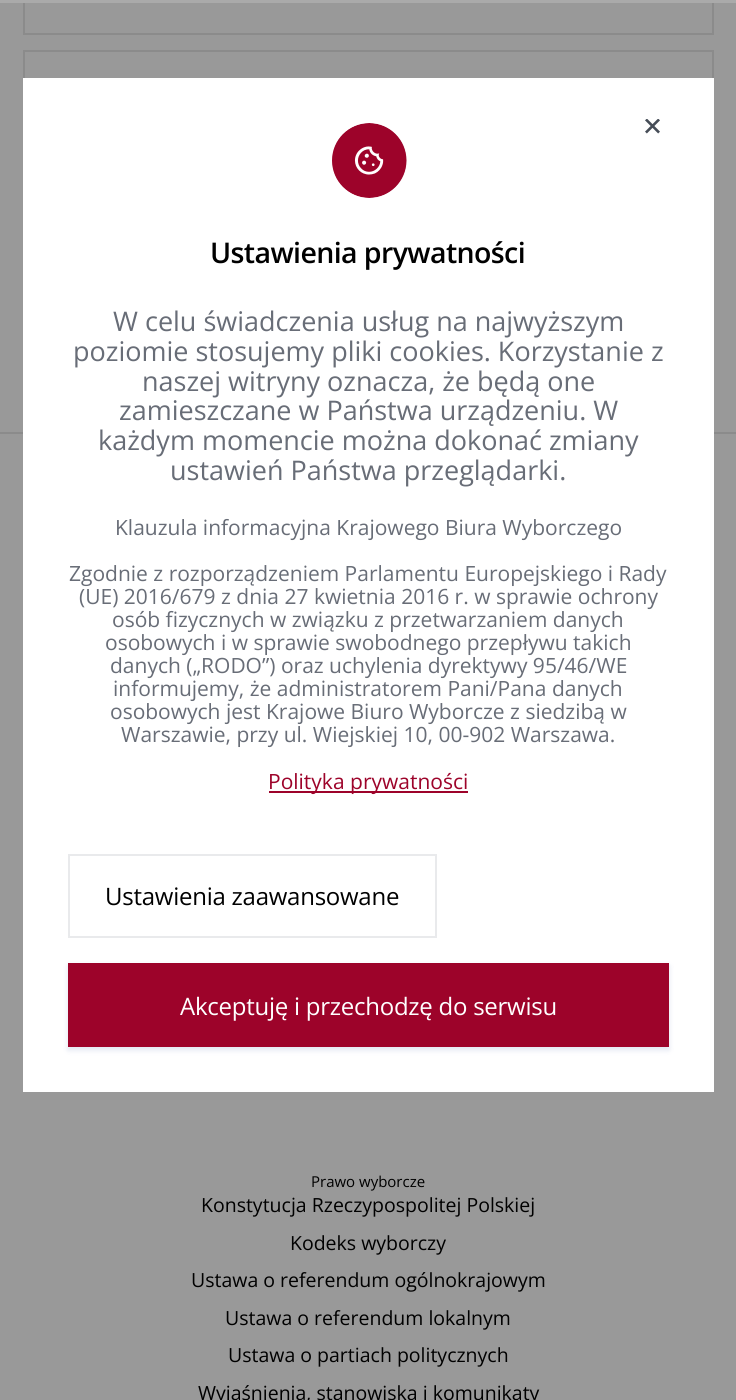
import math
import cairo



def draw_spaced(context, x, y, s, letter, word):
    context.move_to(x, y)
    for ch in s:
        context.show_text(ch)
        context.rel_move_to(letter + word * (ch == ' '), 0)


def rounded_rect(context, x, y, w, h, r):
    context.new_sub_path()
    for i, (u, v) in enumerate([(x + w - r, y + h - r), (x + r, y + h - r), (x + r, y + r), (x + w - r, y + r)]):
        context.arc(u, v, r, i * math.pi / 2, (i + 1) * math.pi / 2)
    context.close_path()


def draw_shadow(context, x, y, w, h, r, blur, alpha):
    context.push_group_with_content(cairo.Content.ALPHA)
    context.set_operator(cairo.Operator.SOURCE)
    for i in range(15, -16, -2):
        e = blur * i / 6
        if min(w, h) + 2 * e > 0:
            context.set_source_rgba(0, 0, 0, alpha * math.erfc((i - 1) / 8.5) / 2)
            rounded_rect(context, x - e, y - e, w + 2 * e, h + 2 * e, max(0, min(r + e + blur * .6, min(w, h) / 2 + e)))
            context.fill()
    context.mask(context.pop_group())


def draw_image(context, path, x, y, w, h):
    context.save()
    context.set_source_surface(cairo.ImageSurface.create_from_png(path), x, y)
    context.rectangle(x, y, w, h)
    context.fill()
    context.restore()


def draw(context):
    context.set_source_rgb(153 / 255, 153 / 255, 153 / 255)
    context.paint()
    context.rectangle(24, -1, 689, 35)
    context.set_source_rgb(139 / 255, 139 / 255, 139 / 255)
    context.stroke()
    context.rectangle(24, 51, 689, 103)
    context.stroke()
    context.set_source_rgb(170 / 255, 170 / 255, 170 / 255)
    context.rectangle(0, 0, 736, 3)
    context.fill()
    context.set_source_rgb(139 / 255, 139 / 255, 139 / 255)
    context.rectangle(0, 432, 736, 2)
    context.fill()
    context.set_source_rgb(1, 1, 1)
    context.rectangle(23, 78, 691, 1014)
    context.fill()
    draw_image(context, "images/1.png", 645, 119, 15, 15)
    context.set_source_rgb(247 / 255, 247 / 255, 247 / 255)
    context.arc(369.5, 160.5, 37.5, 0, 2 * math.pi)
    context.fill()
    draw_image(context, "images/2.png", 332, 123, 75, 75)
    context.set_source_rgb(157 / 255, 3 / 255, 42 / 255)
    context.rectangle(269, 791, 199, 2)
    context.fill()
    context.rectangle(69, 855, 367, 82)
    context.set_source_rgb(233 / 255, 234 / 255, 236 / 255)
    context.stroke()
    context.set_source_rgb(1 / 255, 40 / 255, 128 / 255)
    draw_shadow(context, 68, 966, 601, 84, 0, 3, 0.12)
    context.set_source_rgb(157 / 255, 3 / 255, 42 / 255)
    context.rectangle(68, 963, 601, 84)
    context.fill()
    context.select_font_face("Open Sans SemiBold")
    context.set_font_size(28.5)
    context.set_source_rgb(0, 0, 0)
    draw_spaced(context, 210, 263, "Ustawienia prywatności", -0.6, 0)
    context.select_font_face("Open Sans")
    context.set_font_size(27)
    context.set_source_rgb(104 / 255, 109 / 255, 119 / 255)
    context.move_to(113, 331)
    context.show_text("W celu świadczenia usług na najwyższym")
    context.move_to(73, 361)
    context.show_text("poziomie stosujemy pliki cookies. Korzystanie z")
    context.move_to(142, 391)
    context.show_text("naszej witryny oznacza, że będą one")
    context.move_to(119, 420)
    context.show_text("zamieszczane w Państwa urządzeniu. W")
    context.move_to(98, 450)
    context.show_text("każdym momencie można dokonać zmiany")
    context.move_to(170, 480)
    context.show_text("ustawień Państwa przeglądarki.")
    context.set_font_size(21)
    context.move_to(115, 535)
    context.show_text("Klauzula informacyjna Krajowego Biura Wyborczego")
    context.move_to(69, 581)
    context.show_text("Zgodnie z rozporządzeniem Parlamentu Europejskiego i Rady")
    context.move_to(79, 604)
    context.show_text("(UE) 2016/679 z dnia 27 kwietnia 2016 r. w sprawie ochrony")
    context.move_to(112, 627)
    context.show_text("osób fizycznych w związku z przetwarzaniem danych")
    context.move_to(105, 650)
    context.show_text("osobowych i w sprawie swobodnego przepływu takich")
    context.move_to(110, 673)
    context.show_text("danych („RODO”) oraz uchylenia dyrektywy 95/46/WE")
    context.move_to(113, 696)
    context.show_text("informujemy, że administratorem Pani/Pana danych")
    context.move_to(110, 719)
    context.show_text("osobowych jest Krajowe Biuro Wyborcze z siedzibą w")
    context.move_to(121, 742)
    context.show_text("Warszawie, przy ul. Wiejskiej 10, 00-902 Warszawa.")
    context.set_source_rgb(157 / 255, 3 / 255, 42 / 255)
    context.move_to(268, 789)
    context.show_text("Polityka prywatności")
    context.set_font_size(24)
    context.set_source_rgb(0, 0, 0)
    draw_spaced(context, 105, 905, "Ustawienia zaawansowane", -0.25, 0)
    context.set_source_rgb(1, 1, 1)
    draw_spaced(context, 180, 1015, "Akceptuję i przechodzę do serwisu", -0.25, 0)
    context.set_font_size(15)
    context.set_source_rgb(0, 0, 0)
    context.move_to(311, 1187)
    context.show_text("Prawo wyborcze")
    context.set_font_size(19.5)
    context.move_to(201, 1212)
    context.show_text("Konstytucja Rzeczypospolitej Polskiej")
    context.move_to(290, 1250)
    context.show_text("Kodeks wyborczy")
    context.move_to(191, 1287)
    context.show_text("Ustawa o referendum ogólnokrajowym")
    context.move_to(225, 1325)
    context.show_text("Ustawa o referendum lokalnym")
    context.move_to(228, 1362)
    context.show_text("Ustawa o partiach politycznych")
    context.move_to(198, 1400)
    context.show_text("Wyjaśnienia, stanowiska i komunikaty")


surface = cairo.ImageSurface(cairo.Format.RGB24, 736, 1400)
context = cairo.Context(surface)
options = cairo.FontOptions()
options.set_hint_metrics(cairo.HintMetrics.OFF)
options.set_hint_style(cairo.HintStyle.NONE)
context.set_font_options(options)
context.set_miter_limit(4)
draw(context)
surface.write_to_png("out.png")
